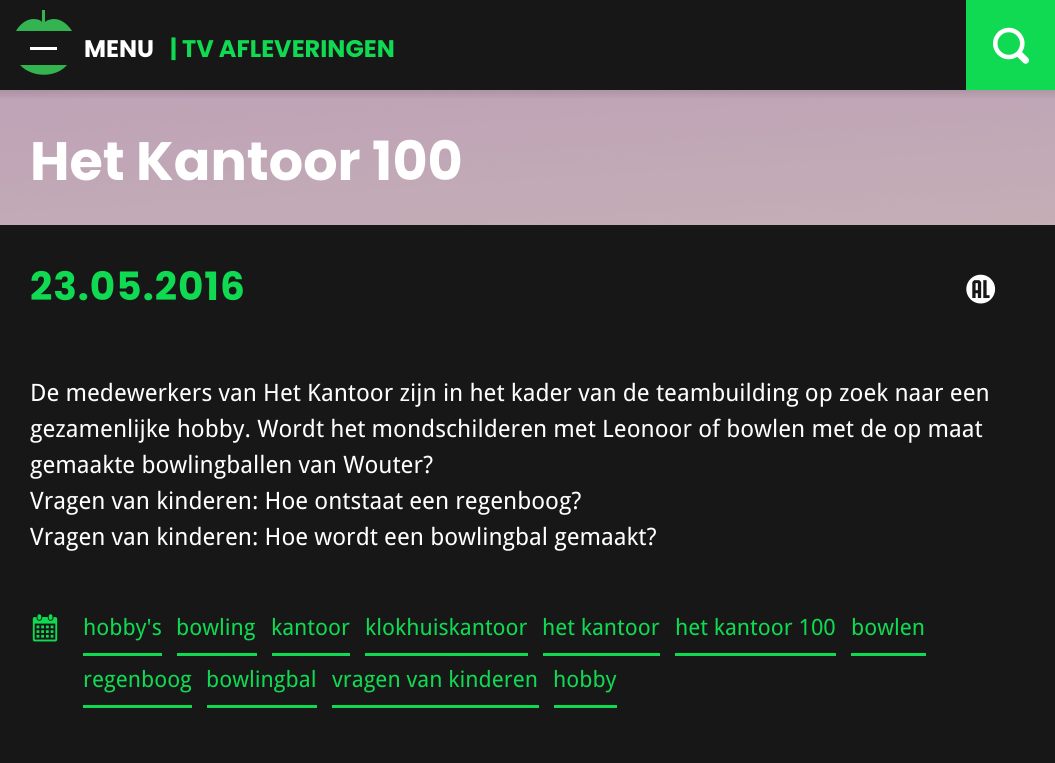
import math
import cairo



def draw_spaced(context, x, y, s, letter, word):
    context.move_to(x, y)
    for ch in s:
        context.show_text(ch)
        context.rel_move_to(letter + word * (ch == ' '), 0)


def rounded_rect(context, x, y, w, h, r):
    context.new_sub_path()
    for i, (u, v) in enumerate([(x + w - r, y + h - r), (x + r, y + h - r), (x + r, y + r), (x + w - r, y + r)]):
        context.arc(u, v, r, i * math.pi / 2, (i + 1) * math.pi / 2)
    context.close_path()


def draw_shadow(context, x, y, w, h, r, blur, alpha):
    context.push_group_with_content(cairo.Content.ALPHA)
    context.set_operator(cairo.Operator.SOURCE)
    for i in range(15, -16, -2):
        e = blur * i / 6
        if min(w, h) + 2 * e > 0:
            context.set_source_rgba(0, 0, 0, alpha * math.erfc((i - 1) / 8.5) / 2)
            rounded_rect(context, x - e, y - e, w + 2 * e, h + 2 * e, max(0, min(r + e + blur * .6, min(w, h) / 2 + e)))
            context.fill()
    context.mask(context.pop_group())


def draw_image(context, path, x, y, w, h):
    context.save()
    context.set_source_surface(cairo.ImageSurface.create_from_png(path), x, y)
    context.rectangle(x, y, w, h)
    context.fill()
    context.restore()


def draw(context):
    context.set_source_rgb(1, 1, 1)
    context.paint()
    draw_image(context, "images/1.png", 0, 90, 1055, 135)
    context.set_source_rgb(23 / 255, 23 / 255, 23 / 255)
    context.rectangle(0, 0, 966, 90)
    context.fill()
    context.save()
    context.rectangle(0, 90, 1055, 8)
    context.clip()
    context.set_source_rgb(0, 0, 0)
    draw_shadow(context, -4, -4, 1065, 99, 0, 4, 0.1)
    context.restore()
    context.set_source_rgb(15 / 255, 218 / 255, 82 / 255)
    context.rectangle(966, 0, 89, 90)
    context.fill()
    draw_image(context, "images/2.png", 993, 27, 36, 37)
    context.set_source_rgb(52 / 255, 180 / 255, 81 / 255)
    context.new_path()
    context.move_to(20, 65)
    context.curve_to(32, 78, 56, 78, 67, 65)
    context.close_path()
    context.fill()
    context.new_path()
    context.move_to(16, 31)
    context.curve_to(16, 31, 22, 19, 34, 19)
    context.curve_to(34, 19, 40, 19, 42, 22)
    context.line_to(42, 10)
    context.line_to(45, 10)
    context.line_to(45, 22)
    context.curve_to(48, 19, 54, 19, 54, 19)
    context.curve_to(65, 19, 72, 31, 72, 31)
    context.close_path()
    context.fill()
    context.set_source_rgb(1, 1, 1)
    context.rectangle(30, 47, 27, 3)
    context.fill()
    context.set_source_rgb(23 / 255, 23 / 255, 23 / 255)
    context.rectangle(0, 225, 1055, 538)
    context.fill()
    draw_image(context, "images/3.png", 32, 614, 26, 28)
    context.set_source_rgb(15 / 255, 218 / 255, 82 / 255)
    context.rectangle(83, 653, 79, 3)
    context.fill()
    context.rectangle(177, 653, 80, 3)
    context.fill()
    context.rectangle(272, 653, 78, 3)
    context.fill()
    context.rectangle(365, 653, 163, 3)
    context.fill()
    context.rectangle(543, 653, 117, 3)
    context.fill()
    context.rectangle(675, 653, 161, 3)
    context.fill()
    context.rectangle(851, 653, 75, 3)
    context.fill()
    context.rectangle(83, 705, 109, 3)
    context.fill()
    context.rectangle(207, 705, 110, 3)
    context.fill()
    context.rectangle(332, 705, 207, 3)
    context.fill()
    context.rectangle(554, 705, 63, 3)
    context.fill()
    context.select_font_face("Poppins", cairo.FontSlant.NORMAL, cairo.FontWeight.BOLD)
    context.set_font_size(24)
    context.set_source_rgb(1, 1, 1)
    context.move_to(84, 57)
    context.show_text("MENU")
    context.set_source_rgb(15 / 255, 218 / 255, 82 / 255)
    context.move_to(170, 57)
    context.show_text("| TV AFLEVERINGEN")
    context.set_font_size(54)
    context.set_source_rgb(1, 1, 1)
    context.move_to(30, 180)
    context.show_text("Het Kantoor 100")
    context.set_font_size(39)
    context.set_source_rgb(15 / 255, 218 / 255, 82 / 255)
    draw_spaced(context, 30, 300, "23.05.2016", 1, 0)
    context.select_font_face("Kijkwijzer")
    context.set_font_size(33)
    context.set_source_rgb(1, 1, 1)
    context.move_to(965, 299)
    context.show_text("1")
    context.select_font_face("Droid Sans")
    context.set_font_size(24)
    context.move_to(30, 401)
    context.show_text("De medewerkers van Het Kantoor zijn in het kader van de teambuilding op zoek naar een")
    context.move_to(30, 437)
    context.show_text("gezamenlijke hobby. Wordt het mondschilderen met Leonoor of bowlen met de op maat")
    context.move_to(30, 473)
    context.show_text("gemaakte bowlingballen van Wouter?")
    context.move_to(30, 509)
    context.show_text("Vragen van kinderen: Hoe ontstaat een regenboog?")
    context.move_to(30, 545)
    context.show_text("Vragen van kinderen: Hoe wordt een bowlingbal gemaakt?")
    context.set_font_size(22.5)
    context.set_source_rgb(15 / 255, 218 / 255, 82 / 255)
    context.move_to(83, 635)
    context.show_text("hobby's")
    context.move_to(176, 635)
    context.show_text("bowling")
    context.move_to(271, 635)
    context.show_text("kantoor")
    context.move_to(365, 635)
    context.show_text("klokhuiskantoor")
    context.move_to(542, 635)
    context.show_text("het kantoor")
    context.move_to(675, 635)
    context.show_text("het kantoor 100")
    context.move_to(851, 635)
    context.show_text("bowlen")
    context.move_to(83, 687)
    context.show_text("regenboog")
    context.move_to(206, 687)
    context.show_text("bowlingbal")
    context.move_to(332, 687)
    context.show_text("vragen van kinderen")
    context.move_to(553, 687)
    context.show_text("hobby")


surface = cairo.ImageSurface(cairo.Format.RGB24, 1055, 763)
context = cairo.Context(surface)
options = cairo.FontOptions()
options.set_hint_metrics(cairo.HintMetrics.OFF)
options.set_hint_style(cairo.HintStyle.NONE)
context.set_font_options(options)
context.set_miter_limit(4)
draw(context)
surface.write_to_png("out.png")
